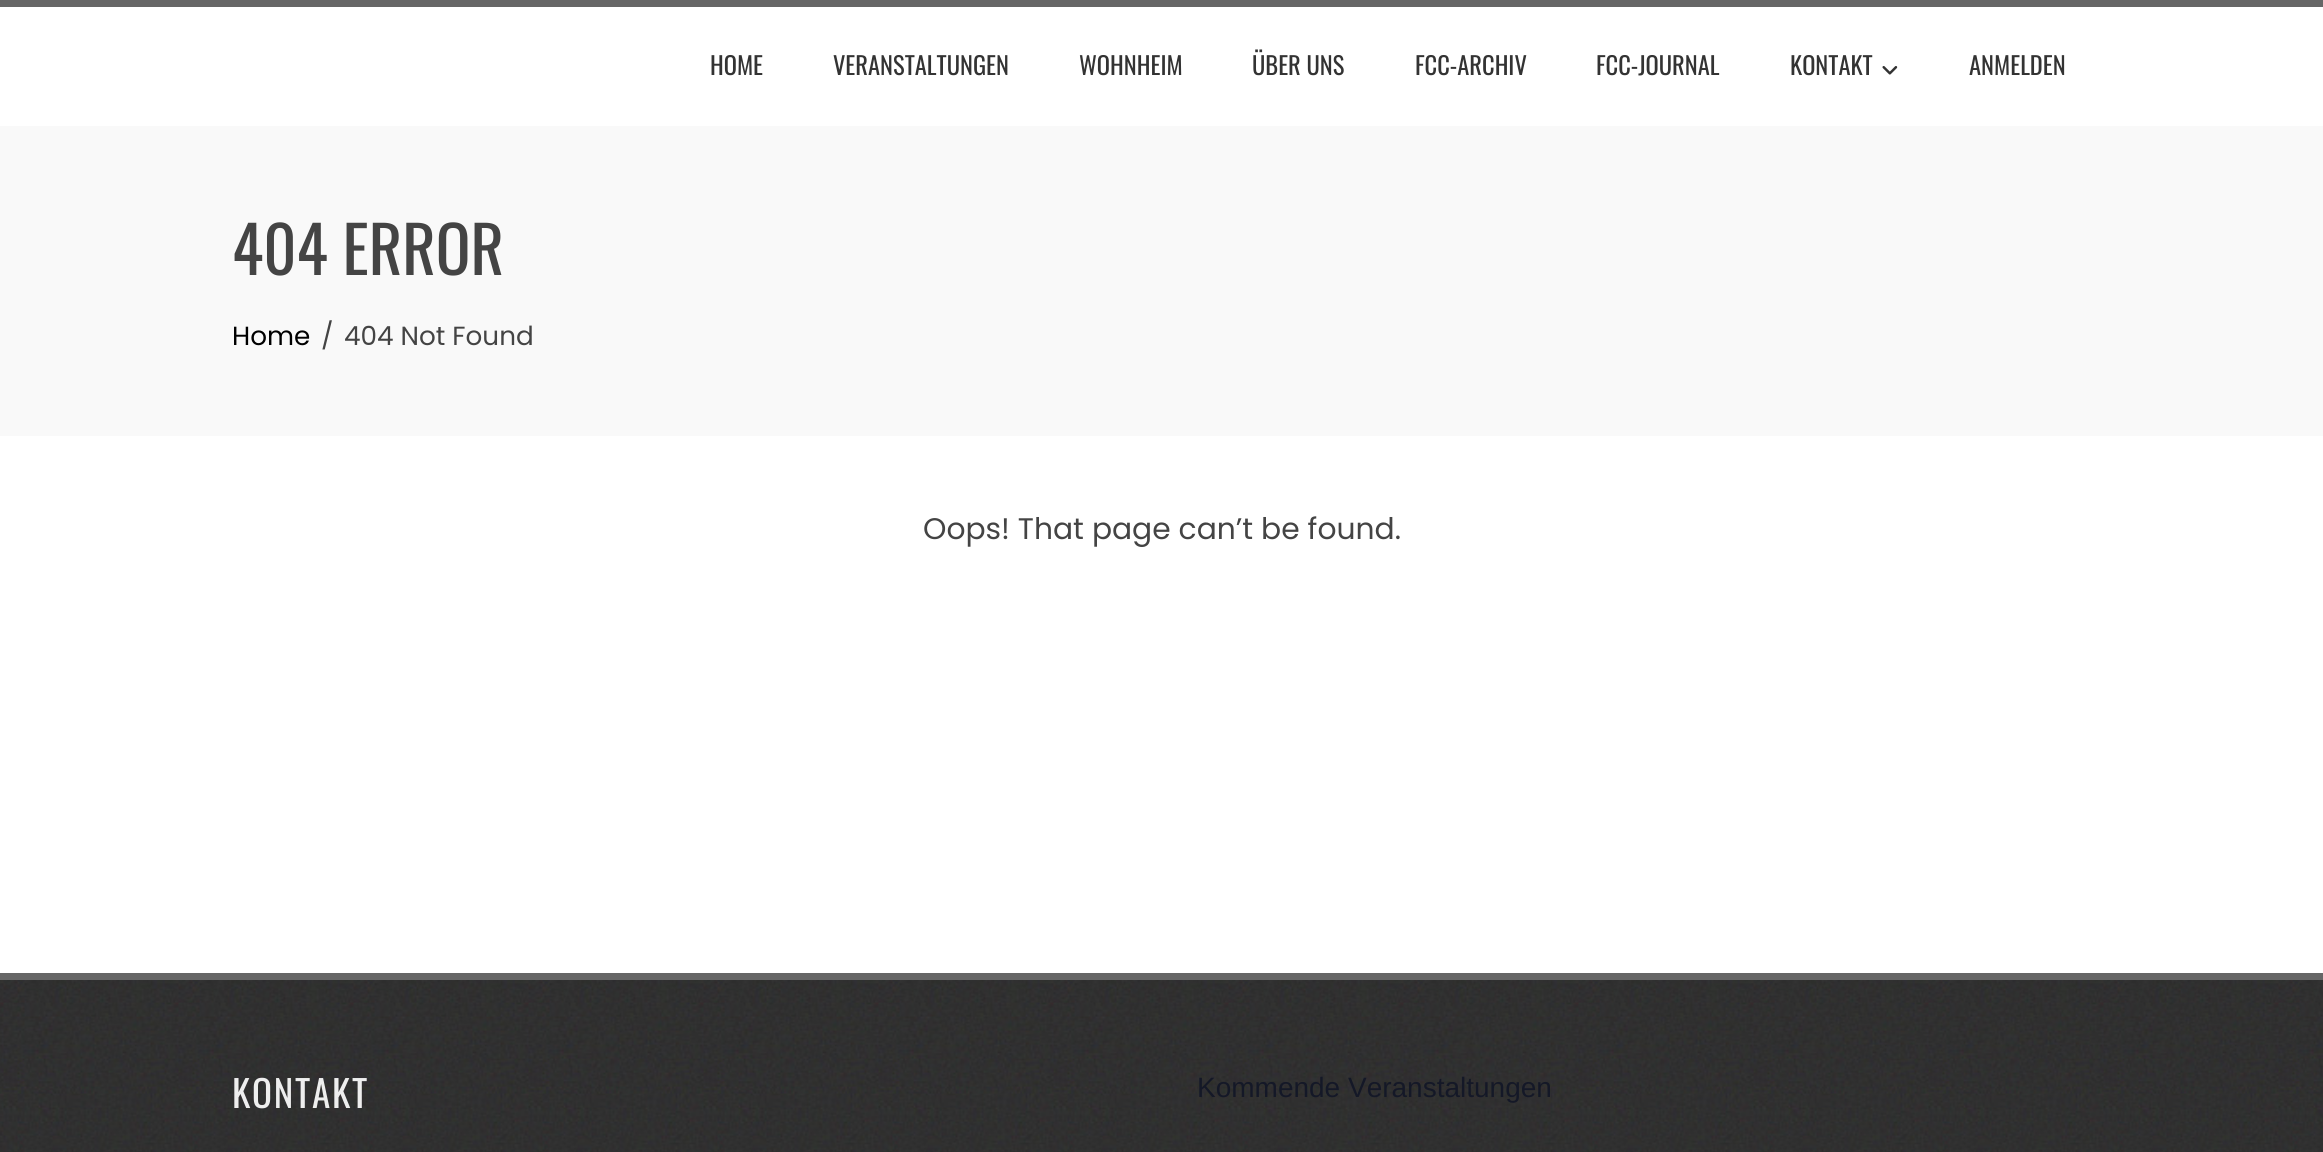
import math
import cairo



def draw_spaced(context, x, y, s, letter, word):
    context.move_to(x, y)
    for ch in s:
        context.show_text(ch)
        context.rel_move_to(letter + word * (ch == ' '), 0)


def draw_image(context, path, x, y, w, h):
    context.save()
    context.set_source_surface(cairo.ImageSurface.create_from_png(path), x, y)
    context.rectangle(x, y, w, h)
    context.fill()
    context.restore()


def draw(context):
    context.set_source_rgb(1, 1, 1)
    context.paint()
    context.set_source_rgb(102 / 255, 102 / 255, 102 / 255)
    context.rectangle(0, 0, 2323, 7)
    context.fill()
    draw_image(context, "images/1.png", 1882, 66, 16, 9)
    context.set_source_rgb(249 / 255, 249 / 255, 249 / 255)
    context.rectangle(0, 126, 2323, 310)
    context.fill()
    draw_image(context, "images/2.png", 0, 980, 2323, 172)
    context.set_source_rgb(102 / 255, 102 / 255, 102 / 255)
    context.rectangle(0, 973, 2323, 7)
    context.fill()
    context.select_font_face("Oswald")
    context.set_font_size(24.5)
    context.set_source_rgb(51 / 255, 51 / 255, 51 / 255)
    context.move_to(710, 75)
    context.show_text("HOME")
    context.move_to(833, 75)
    context.show_text("VERANSTALTUNGEN")
    context.move_to(1079, 75)
    context.show_text("WOHNHEIM")
    context.move_to(1252, 75)
    context.show_text("ÜBER UNS")
    context.move_to(1415, 75)
    context.show_text("FCC-ARCHIV")
    context.move_to(1596, 75)
    context.show_text("FCC-JOURNAL")
    context.move_to(1790, 75)
    context.show_text("KONTAKT")
    context.move_to(1969, 75)
    context.show_text("ANMELDEN")
    context.set_font_size(64.5)
    context.set_source_rgb(68 / 255, 68 / 255, 68 / 255)
    context.move_to(232, 275)
    context.show_text("404 ERROR")
    context.select_font_face("Poppins")
    context.set_font_size(26.25)
    context.set_source_rgb(0, 0, 0)
    context.move_to(232, 345)
    context.show_text("Home")
    context.set_source_rgb(68 / 255, 68 / 255, 68 / 255)
    context.move_to(321, 345)
    context.show_text("/")
    context.move_to(344, 345)
    context.show_text("404 Not Found")
    context.set_font_size(29.75)
    context.move_to(923, 539)
    context.show_text("Oops! That page can’t be found.")
    context.select_font_face("Oswald")
    context.set_font_size(37)
    context.set_source_rgb(238 / 255, 238 / 255, 238 / 255)
    draw_spaced(context, 232, 1108, "KONTAKT", 1.75, 0)
    context.select_font_face("Liberation Sans")
    context.set_font_size(28)
    context.set_source_rgb(20 / 255, 24 / 255, 39 / 255)
    context.move_to(1197, 1097)
    context.show_text("Kommende Veranstaltungen")


surface = cairo.ImageSurface(cairo.Format.RGB24, 2323, 1152)
context = cairo.Context(surface)
options = cairo.FontOptions()
options.set_hint_metrics(cairo.HintMetrics.OFF)
options.set_hint_style(cairo.HintStyle.NONE)
context.set_font_options(options)
context.set_miter_limit(4)
draw(context)
surface.write_to_png("out.png")
